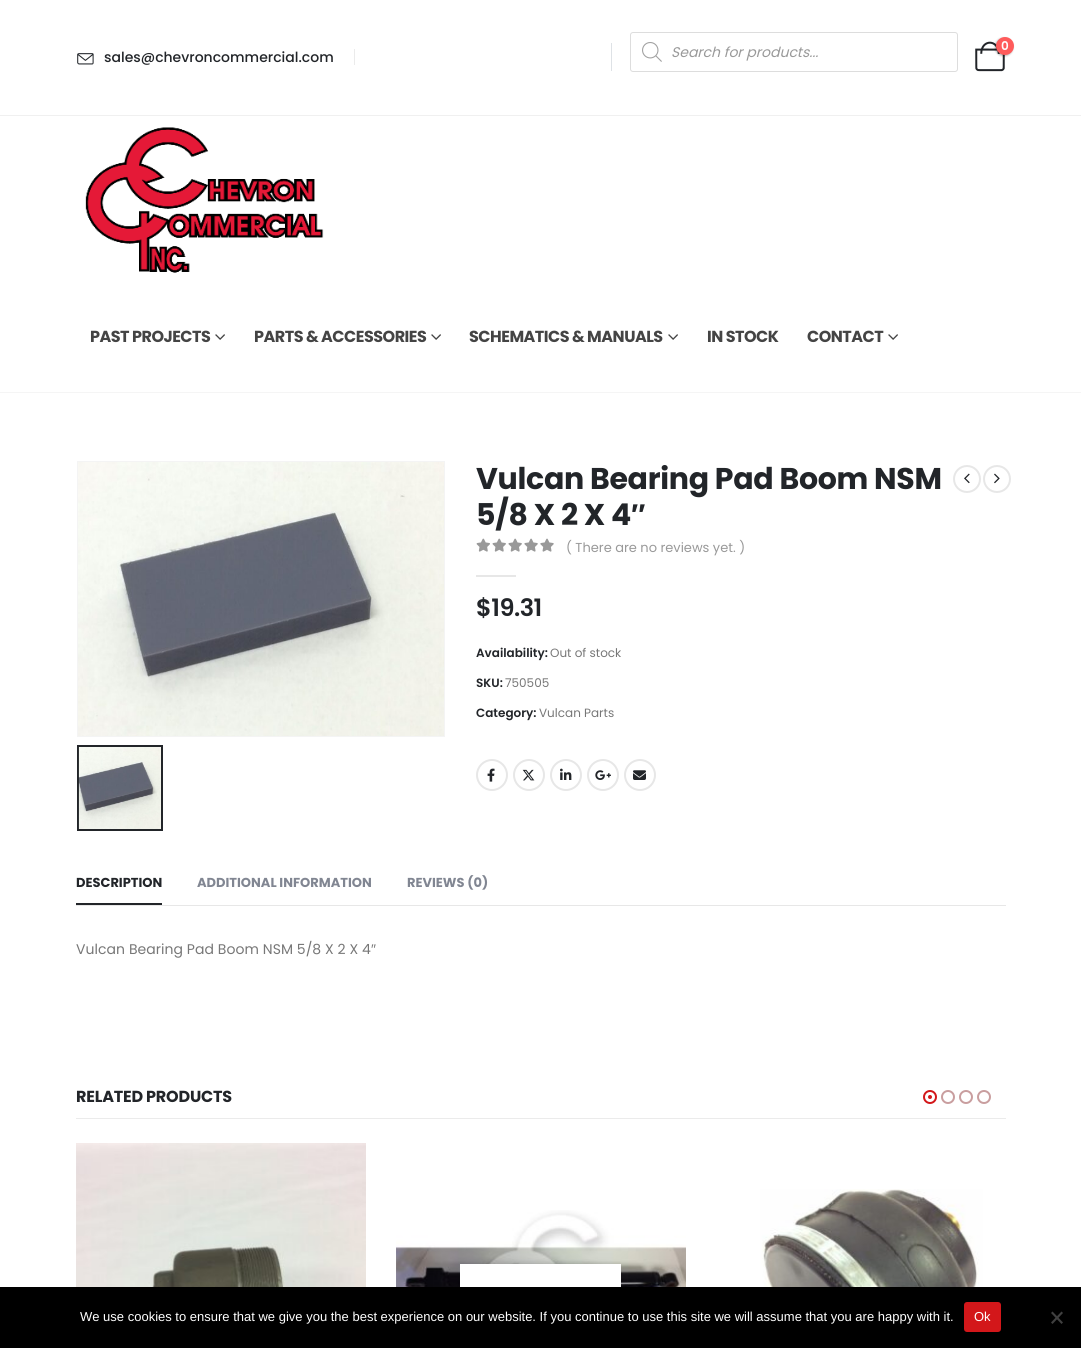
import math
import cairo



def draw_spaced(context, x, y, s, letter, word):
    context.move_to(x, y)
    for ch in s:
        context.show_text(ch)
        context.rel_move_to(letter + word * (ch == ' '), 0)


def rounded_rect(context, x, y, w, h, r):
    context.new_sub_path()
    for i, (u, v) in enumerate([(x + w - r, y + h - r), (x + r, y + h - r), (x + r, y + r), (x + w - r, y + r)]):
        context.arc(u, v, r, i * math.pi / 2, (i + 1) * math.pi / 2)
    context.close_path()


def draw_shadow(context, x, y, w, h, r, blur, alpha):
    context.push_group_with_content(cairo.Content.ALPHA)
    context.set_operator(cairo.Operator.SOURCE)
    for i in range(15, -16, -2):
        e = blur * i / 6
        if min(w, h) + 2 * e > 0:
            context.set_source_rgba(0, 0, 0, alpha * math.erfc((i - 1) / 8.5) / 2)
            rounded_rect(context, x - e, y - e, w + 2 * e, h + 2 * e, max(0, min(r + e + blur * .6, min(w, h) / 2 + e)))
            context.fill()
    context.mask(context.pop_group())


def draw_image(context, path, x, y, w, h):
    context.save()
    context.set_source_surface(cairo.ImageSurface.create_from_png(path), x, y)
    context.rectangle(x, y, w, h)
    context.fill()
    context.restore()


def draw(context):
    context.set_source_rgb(1, 1, 1)
    context.paint()
    context.set_source_rgb(240 / 255, 240 / 255, 240 / 255)
    context.rectangle(0, 115, 1081, 1)
    context.fill()
    draw_image(context, "images/1.png", 77, 53, 17, 12)
    context.set_source_rgb(235 / 255, 235 / 255, 235 / 255)
    context.rectangle(354, 49, 1, 16)
    context.fill()
    context.set_source_rgb(222 / 255, 226 / 255, 230 / 255)
    context.rectangle(611, 43, 1, 28)
    context.fill()
    rounded_rect(context, 630.5, 32.5, 327, 39, 2.5)
    context.set_source_rgb(221 / 255, 221 / 255, 221 / 255)
    context.set_line_width(1)
    context.stroke()
    draw_image(context, "images/2.png", 642, 42, 20, 20)
    draw_image(context, "images/3.png", 975, 41, 30, 31)
    context.set_source_rgb(0, 0, 0)
    draw_shadow(context, 995, 38, 18, 18, 9, 1, 0.3)
    context.set_source_rgb(1, 91 / 255, 91 / 255)
    context.arc(1005, 46, 9, 0, 2 * math.pi)
    context.fill()
    context.set_source_rgb(245 / 255, 245 / 255, 245 / 255)
    context.rectangle(0, 392, 1081, 1)
    context.fill()
    draw_image(context, "images/4.png", 85, 127, 239, 146)
    draw_image(context, "images/5.png", 215, 334, 10, 6)
    draw_image(context, "images/5.png", 431, 334, 10, 6)
    draw_image(context, "images/5.png", 668, 334, 10, 6)
    draw_image(context, "images/5.png", 888, 334, 10, 6)
    context.rectangle(77.5, 461.5, 367, 275)
    context.set_source_rgb(244 / 255, 244 / 255, 244 / 255)
    context.stroke()
    draw_image(context, "images/6.png", 78, 462, 366, 274)
    context.rectangle(78, 746, 84, 84)
    context.set_source_rgb(34 / 255, 37 / 255, 41 / 255)
    context.set_line_width(2)
    context.stroke()
    draw_image(context, "images/7.png", 78, 747, 83, 82)
    context.arc(967, 479, 13, 0, 2 * math.pi)
    context.set_source_rgb(231 / 255, 231 / 255, 231 / 255)
    context.stroke()
    draw_image(context, "images/8.png", 964, 473, 6, 11)
    context.arc(997, 479, 13, 0, 2 * math.pi)
    context.stroke()
    draw_image(context, "images/9.png", 994, 473, 6, 11)
    draw_image(context, "images/10.png", 476, 538, 78, 14)
    context.rectangle(476, 575, 40, 2)
    context.fill()
    context.arc(492, 775, 15, 0, 2 * math.pi)
    context.stroke()
    draw_image(context, "images/11.png", 487, 768, 8, 14)
    context.arc(529, 775, 15, 0, 2 * math.pi)
    context.stroke()
    draw_image(context, "images/12.png", 522, 769, 13, 12)
    context.arc(566, 775, 15, 0, 2 * math.pi)
    context.stroke()
    draw_image(context, "images/13.png", 560, 768, 12, 12)
    context.arc(603, 775, 15, 0, 2 * math.pi)
    context.stroke()
    draw_image(context, "images/14.png", 595, 770, 16, 10)
    context.arc(640, 775, 15, 0, 2 * math.pi)
    context.stroke()
    draw_image(context, "images/15.png", 633, 770, 13, 10)
    context.set_source_rgb(34 / 255, 37 / 255, 41 / 255)
    context.rectangle(76, 903, 86, 2)
    context.fill()
    context.set_source_rgb(231 / 255, 231 / 255, 231 / 255)
    context.rectangle(76, 905, 930, 1)
    context.fill()
    context.set_source_rgb(235 / 255, 235 / 255, 235 / 255)
    context.rectangle(76, 1118, 930, 1)
    context.fill()
    context.arc(930, 1097, 6, 0, 2 * math.pi)
    context.set_source_rgb(211 / 255, 23 / 255, 26 / 255)
    context.stroke()
    context.arc(930, 1097, 2, 0, 2 * math.pi)
    context.fill()
    context.arc(948, 1097, 6, 0, 2 * math.pi)
    context.set_source_rgb(201 / 255, 158 / 255, 159 / 255)
    context.stroke()
    context.arc(966, 1097, 6, 0, 2 * math.pi)
    context.stroke()
    context.arc(984, 1097, 6, 0, 2 * math.pi)
    context.stroke()
    draw_image(context, "images/16.png", 76, 1143, 290, 144)
    draw_image(context, "images/17.png", 396, 1210, 290, 77)
    context.set_source_rgb(1, 1, 1)
    context.rectangle(460, 1264, 161, 23)
    context.fill()
    draw_image(context, "images/18.png", 760, 1189, 223, 98)
    context.set_source_rgb(0, 0, 0)
    context.rectangle(0, 1287, 1081, 61)
    context.fill()
    context.set_source_rgb(211 / 255, 23 / 255, 26 / 255)
    rounded_rect(context, 964, 1302, 37, 30, 3)
    context.fill()
    context.set_source_rgb(64 / 255, 64 / 255, 64 / 255)
    context.new_path()
    context.move_to(1061.5, 1311.5)
    context.line_to(1063, 1313)
    context.line_to(1052.5, 1324)
    context.line_to(1051, 1322.5)
    context.close_path()
    context.fill()
    context.new_path()
    context.move_to(1051, 1313)
    context.line_to(1052.5, 1311.5)
    context.line_to(1063, 1322.5)
    context.line_to(1061.5, 1324)
    context.close_path()
    context.fill()
    context.select_font_face("Poppins Medium")
    context.set_font_size(14)
    context.set_source_rgb(34 / 255, 37 / 255, 41 / 255)
    context.move_to(104, 62)
    context.show_text("sales@chevroncommercial.com")
    context.select_font_face("Poppins", cairo.FontSlant.ITALIC)
    context.set_source_rgb(153 / 255, 153 / 255, 153 / 255)
    context.move_to(671, 57)
    context.show_text("Search for products...")
    context.select_font_face("Poppins SemiBold")
    context.set_font_size(12)
    context.set_source_rgb(1, 1, 1)
    context.move_to(1001, 50)
    context.show_text("0")
    context.select_font_face("Poppins", cairo.FontSlant.NORMAL, cairo.FontWeight.BOLD)
    context.set_font_size(16)
    context.set_source_rgb(68 / 255, 68 / 255, 68 / 255)
    draw_spaced(context, 90, 342, "PAST PROJECTS", -0.5, 0)
    draw_spaced(context, 254, 342, "PARTS & ACCESSORIES", -0.5, 0)
    draw_spaced(context, 469, 342, "SCHEMATICS & MANUALS", -0.5, 0)
    draw_spaced(context, 707, 342, "IN STOCK", -0.5, 0)
    draw_spaced(context, 807, 342, "CONTACT", -0.5, 0)
    context.set_font_size(30)
    context.set_source_rgb(34 / 255, 37 / 255, 41 / 255)
    draw_spaced(context, 476, 489, "Vulcan Bearing Pad Boom NSM", -0.3, 0)
    draw_spaced(context, 476, 525, "5/8 X 2 X 4", -0.3, 0)
    context.select_font_face("Liberation Sans", cairo.FontSlant.NORMAL, cairo.FontWeight.BOLD)
    draw_spaced(context, 631, 525, "″", -0.3, 0)
    context.select_font_face("Poppins")
    context.set_font_size(13)
    context.set_source_rgb(153 / 255, 153 / 255, 153 / 255)
    context.move_to(566, 552)
    context.show_text("( There are no reviews yet. )")
    context.select_font_face("Poppins SemiBold")
    context.set_font_size(24)
    context.set_source_rgb(34 / 255, 37 / 255, 41 / 255)
    draw_spaced(context, 476, 616, "$19.31", -0.5, 0)
    context.set_font_size(12)
    context.move_to(476, 657)
    context.show_text("Availability:")
    context.select_font_face("Poppins")
    context.set_source_rgb(119 / 255, 119 / 255, 119 / 255)
    context.move_to(550, 657)
    context.show_text("Out of stock")
    context.select_font_face("Poppins SemiBold")
    context.set_source_rgb(34 / 255, 37 / 255, 41 / 255)
    context.move_to(476, 687)
    context.show_text("SKU:")
    context.select_font_face("Poppins")
    context.set_source_rgb(119 / 255, 119 / 255, 119 / 255)
    context.move_to(505, 687)
    context.show_text("750505")
    context.select_font_face("Poppins SemiBold")
    context.set_source_rgb(34 / 255, 37 / 255, 41 / 255)
    context.move_to(476, 717)
    context.show_text("Category:")
    context.select_font_face("Poppins")
    context.set_source_rgb(119 / 255, 119 / 255, 119 / 255)
    context.move_to(539, 717)
    context.show_text("Vulcan Parts")
    context.select_font_face("Poppins", cairo.FontSlant.NORMAL, cairo.FontWeight.BOLD)
    context.set_font_size(13)
    context.set_source_rgb(34 / 255, 37 / 255, 41 / 255)
    context.move_to(76, 887)
    context.show_text("DESCRIPTION")
    context.set_source_rgb(129 / 255, 134 / 255, 146 / 255)
    context.move_to(197, 887)
    context.show_text("ADDITIONAL INFORMATION")
    context.move_to(407, 887)
    context.show_text("REVIEWS (0)")
    context.select_font_face("Poppins")
    context.set_font_size(14)
    context.set_source_rgb(119 / 255, 119 / 255, 119 / 255)
    draw_spaced(context, 76, 954, "Vulcan Bearing Pad Boom NSM 5/8 X 2 X 4", 0.05, 0)
    context.select_font_face("Liberation Sans")
    draw_spaced(context, 371, 954, "″", 0.05, 0)
    context.select_font_face("Poppins", cairo.FontSlant.NORMAL, cairo.FontWeight.BOLD)
    context.set_font_size(16)
    context.set_source_rgb(34 / 255, 37 / 255, 41 / 255)
    draw_spaced(context, 76, 1102, "RELATED PRODUCTS", -0.2, 0)
    context.select_font_face("Liberation Sans")
    context.set_font_size(13)
    context.set_source_rgb(1, 1, 1)
    context.move_to(80, 1321)
    context.show_text("We use cookies to ensure that we give you the best experience on our website. If you continue to use this site we will assume that you are happy with it.")
    context.move_to(974, 1321)
    context.show_text("Ok")


surface = cairo.ImageSurface(cairo.Format.RGB24, 1081, 1348)
context = cairo.Context(surface)
options = cairo.FontOptions()
options.set_hint_metrics(cairo.HintMetrics.OFF)
options.set_hint_style(cairo.HintStyle.NONE)
context.set_font_options(options)
context.set_miter_limit(4)
draw(context)
surface.write_to_png("out.png")
